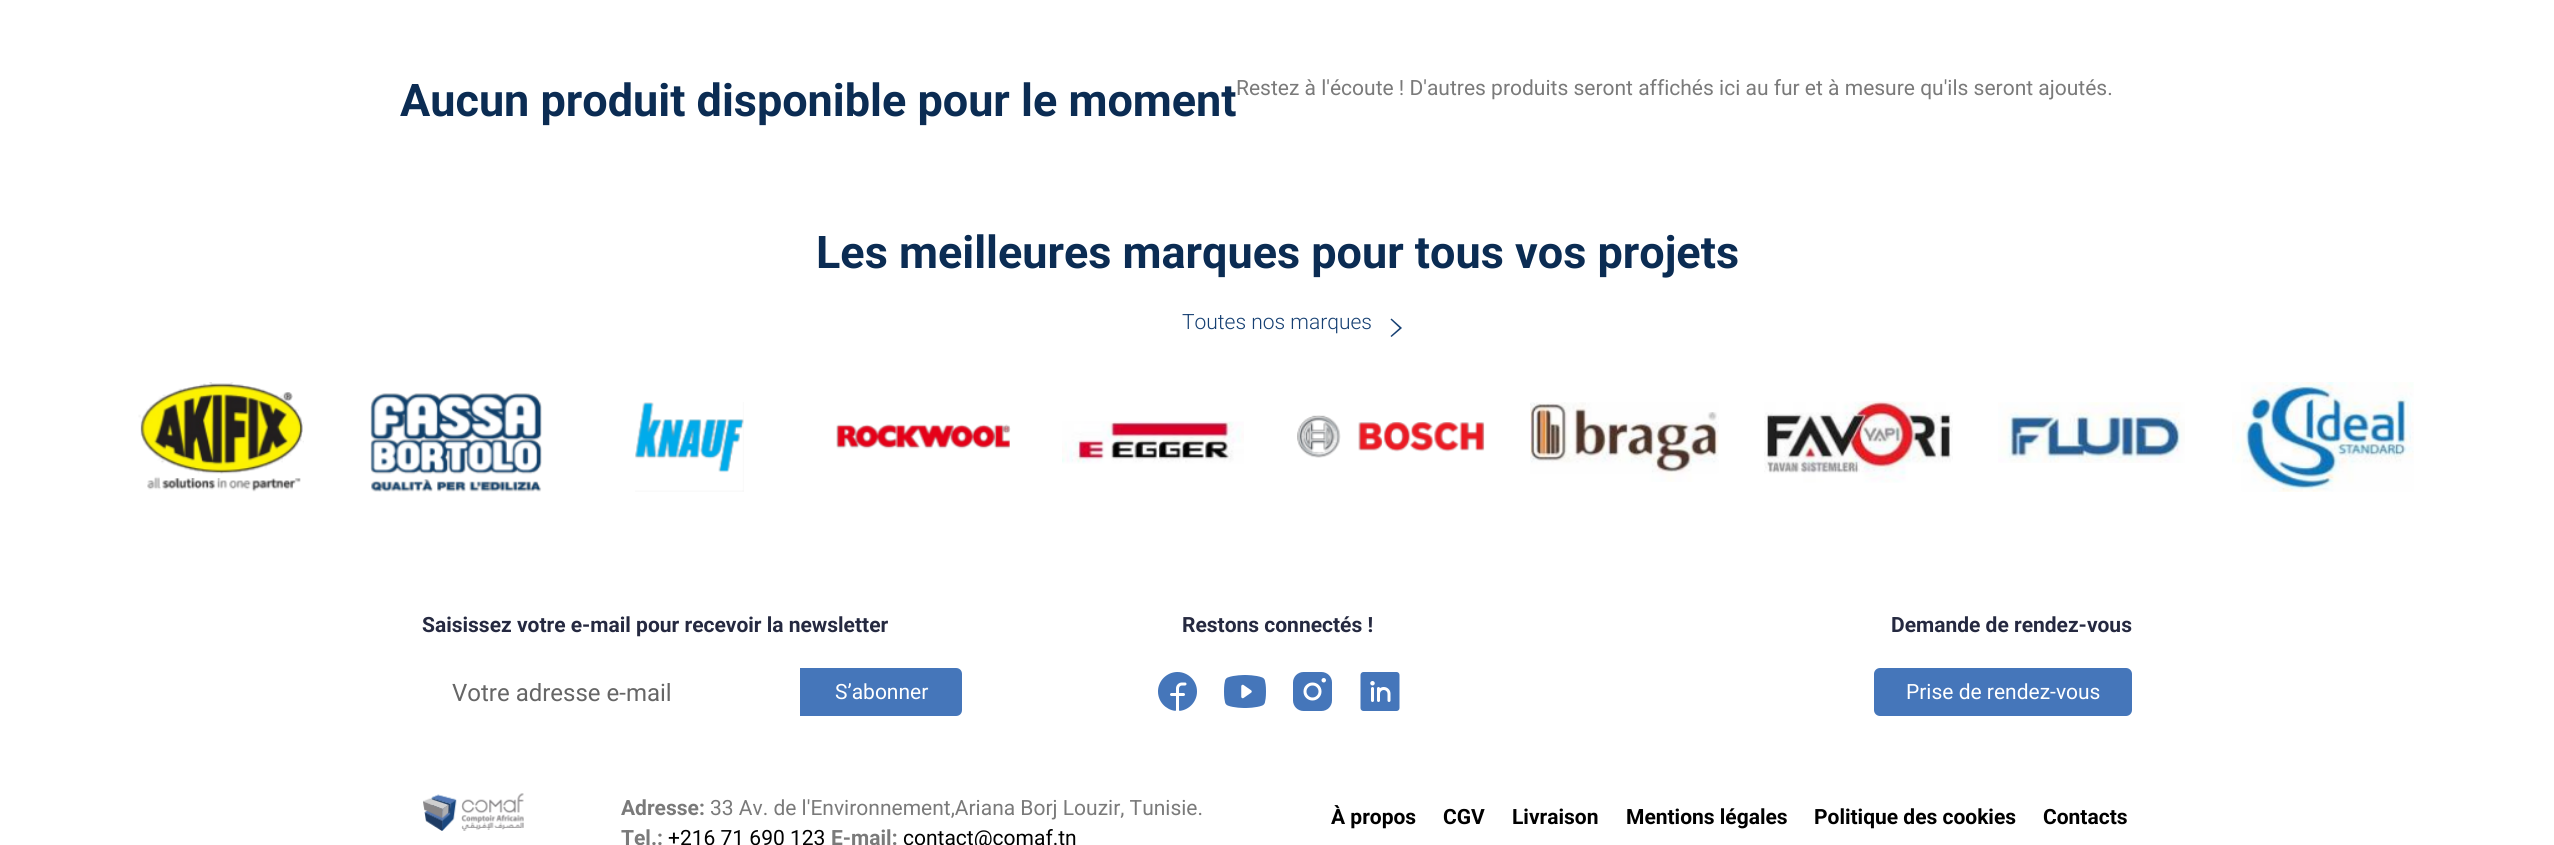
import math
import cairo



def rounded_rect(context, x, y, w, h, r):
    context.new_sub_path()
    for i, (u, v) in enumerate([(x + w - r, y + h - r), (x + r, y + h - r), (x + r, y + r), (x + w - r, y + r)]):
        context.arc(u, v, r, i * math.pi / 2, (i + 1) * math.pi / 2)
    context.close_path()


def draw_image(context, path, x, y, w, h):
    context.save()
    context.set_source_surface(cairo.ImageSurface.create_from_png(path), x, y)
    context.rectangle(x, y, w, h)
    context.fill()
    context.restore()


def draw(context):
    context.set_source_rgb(1, 1, 1)
    context.paint()
    context.set_source_rgb(21 / 255, 63 / 255, 114 / 255)
    context.new_path()
    context.move_to(1390.5, 319.5)
    context.line_to(1391.5, 318.5)
    context.line_to(1402, 328)
    context.line_to(1391.5, 337)
    context.line_to(1390.5, 336)
    context.line_to(1399.5, 328)
    context.close_path()
    context.fill()
    draw_image(context, "images/1.png", 138, 382, 166, 110)
    draw_image(context, "images/2.png", 370, 393, 172, 99)
    draw_image(context, "images/3.png", 635, 402, 109, 90)
    draw_image(context, "images/4.png", 836, 424, 175, 25)
    draw_image(context, "images/5.png", 1062, 421, 182, 43)
    draw_image(context, "images/6.png", 1297, 415, 188, 43)
    draw_image(context, "images/7.png", 1530, 402, 189, 80)
    draw_image(context, "images/8.png", 1764, 401, 189, 82)
    draw_image(context, "images/9.png", 1998, 402, 187, 61)
    draw_image(context, "images/10.png", 2232, 382, 182, 110)
    context.set_source_rgb(69 / 255, 118 / 255, 186 / 255)
    context.new_path()
    context.move_to(800, 668)
    context.line_to(956, 668)
    context.curve_to(959.5, 668, 962, 670.5, 962, 674)
    context.line_to(962, 710)
    context.curve_to(962, 713.5, 959.5, 716, 956, 716)
    context.line_to(800, 716)
    context.close_path()
    context.fill()
    draw_image(context, "images/11.png", 1158, 672, 39, 39)
    draw_image(context, "images/12.png", 1224, 675, 42, 33)
    draw_image(context, "images/13.png", 1293, 672, 39, 39)
    draw_image(context, "images/14.png", 1360, 672, 40, 39)
    rounded_rect(context, 1874, 668, 258, 48, 6)
    context.fill()
    draw_image(context, "images/15.png", 423, 793, 101, 38)
    context.select_font_face("Roboto", cairo.FontSlant.NORMAL, cairo.FontWeight.BOLD)
    context.set_font_size(45)
    context.set_source_rgb(11 / 255, 44 / 255, 83 / 255)
    context.move_to(400, 116)
    context.show_text("Aucun produit disponible pour le moment")
    context.select_font_face("Roboto")
    context.set_font_size(21)
    context.set_source_rgb(122 / 255, 122 / 255, 122 / 255)
    context.move_to(1236, 95)
    context.show_text("Restez à l'écoute ! D'autres produits seront affichés ici au fur et à mesure qu'ils seront ajoutés.")
    context.select_font_face("Roboto", cairo.FontSlant.NORMAL, cairo.FontWeight.BOLD)
    context.set_font_size(45)
    context.set_source_rgb(11 / 255, 44 / 255, 83 / 255)
    context.move_to(816, 268)
    context.show_text("Les meilleures marques pour tous vos projets")
    context.select_font_face("Roboto Light")
    context.set_font_size(21)
    context.set_source_rgb(21 / 255, 63 / 255, 114 / 255)
    context.move_to(1182, 329)
    context.show_text("Toutes nos marques")
    context.select_font_face("Roboto", cairo.FontSlant.NORMAL, cairo.FontWeight.BOLD)
    context.set_source_rgb(37 / 255, 41 / 255, 64 / 255)
    context.move_to(422, 632)
    context.show_text("Saisissez votre e-mail pour recevoir la newsletter")
    context.select_font_face("Roboto")
    context.set_font_size(24)
    context.set_source_rgb(102 / 255, 102 / 255, 102 / 255)
    context.move_to(452, 701)
    context.show_text("Votre adresse e-mail")
    context.set_font_size(21)
    context.set_source_rgb(1, 1, 1)
    context.move_to(835, 699)
    context.show_text("S’abonner")
    context.select_font_face("Roboto", cairo.FontSlant.NORMAL, cairo.FontWeight.BOLD)
    context.set_source_rgb(37 / 255, 41 / 255, 64 / 255)
    context.move_to(1182, 632)
    context.show_text("Restons connectés !")
    context.move_to(1891, 632)
    context.show_text("Demande de rendez-vous")
    context.select_font_face("Roboto")
    context.set_source_rgb(1, 1, 1)
    context.move_to(1906, 699)
    context.show_text("Prise de rendez-vous")
    context.select_font_face("Roboto", cairo.FontSlant.NORMAL, cairo.FontWeight.BOLD)
    context.set_source_rgb(122 / 255, 122 / 255, 122 / 255)
    context.move_to(621, 815)
    context.show_text("Adresse:")
    context.select_font_face("Roboto")
    context.move_to(710, 815)
    context.show_text("33 Av. de l'Environnement,Ariana Borj Louzir, Tunisie.")
    context.select_font_face("Roboto", cairo.FontSlant.NORMAL, cairo.FontWeight.BOLD)
    context.move_to(621, 845)
    context.show_text("Tel.:")
    context.select_font_face("Roboto")
    context.set_source_rgb(0, 0, 0)
    context.move_to(668, 845)
    context.show_text("+216 71 690 123")
    context.select_font_face("Roboto", cairo.FontSlant.NORMAL, cairo.FontWeight.BOLD)
    context.set_source_rgb(122 / 255, 122 / 255, 122 / 255)
    context.move_to(831, 845)
    context.show_text("E-mail:")
    context.select_font_face("Roboto")
    context.set_source_rgb(0, 0, 0)
    context.move_to(903, 845)
    context.show_text("contact@comaf.tn")
    context.select_font_face("Roboto", cairo.FontSlant.NORMAL, cairo.FontWeight.BOLD)
    context.move_to(1331, 824)
    context.show_text("À propos")
    context.move_to(1443, 824)
    context.show_text("CGV")
    context.move_to(1512, 824)
    context.show_text("Livraison")
    context.move_to(1626, 824)
    context.show_text("Mentions légales")
    context.move_to(1814, 824)
    context.show_text("Politique des cookies")
    context.move_to(2043, 824)
    context.show_text("Contacts")


surface = cairo.ImageSurface(cairo.Format.RGB24, 2554, 845)
context = cairo.Context(surface)
options = cairo.FontOptions()
options.set_hint_metrics(cairo.HintMetrics.OFF)
options.set_hint_style(cairo.HintStyle.NONE)
context.set_font_options(options)
context.set_miter_limit(4)
draw(context)
surface.write_to_png("out.png")
